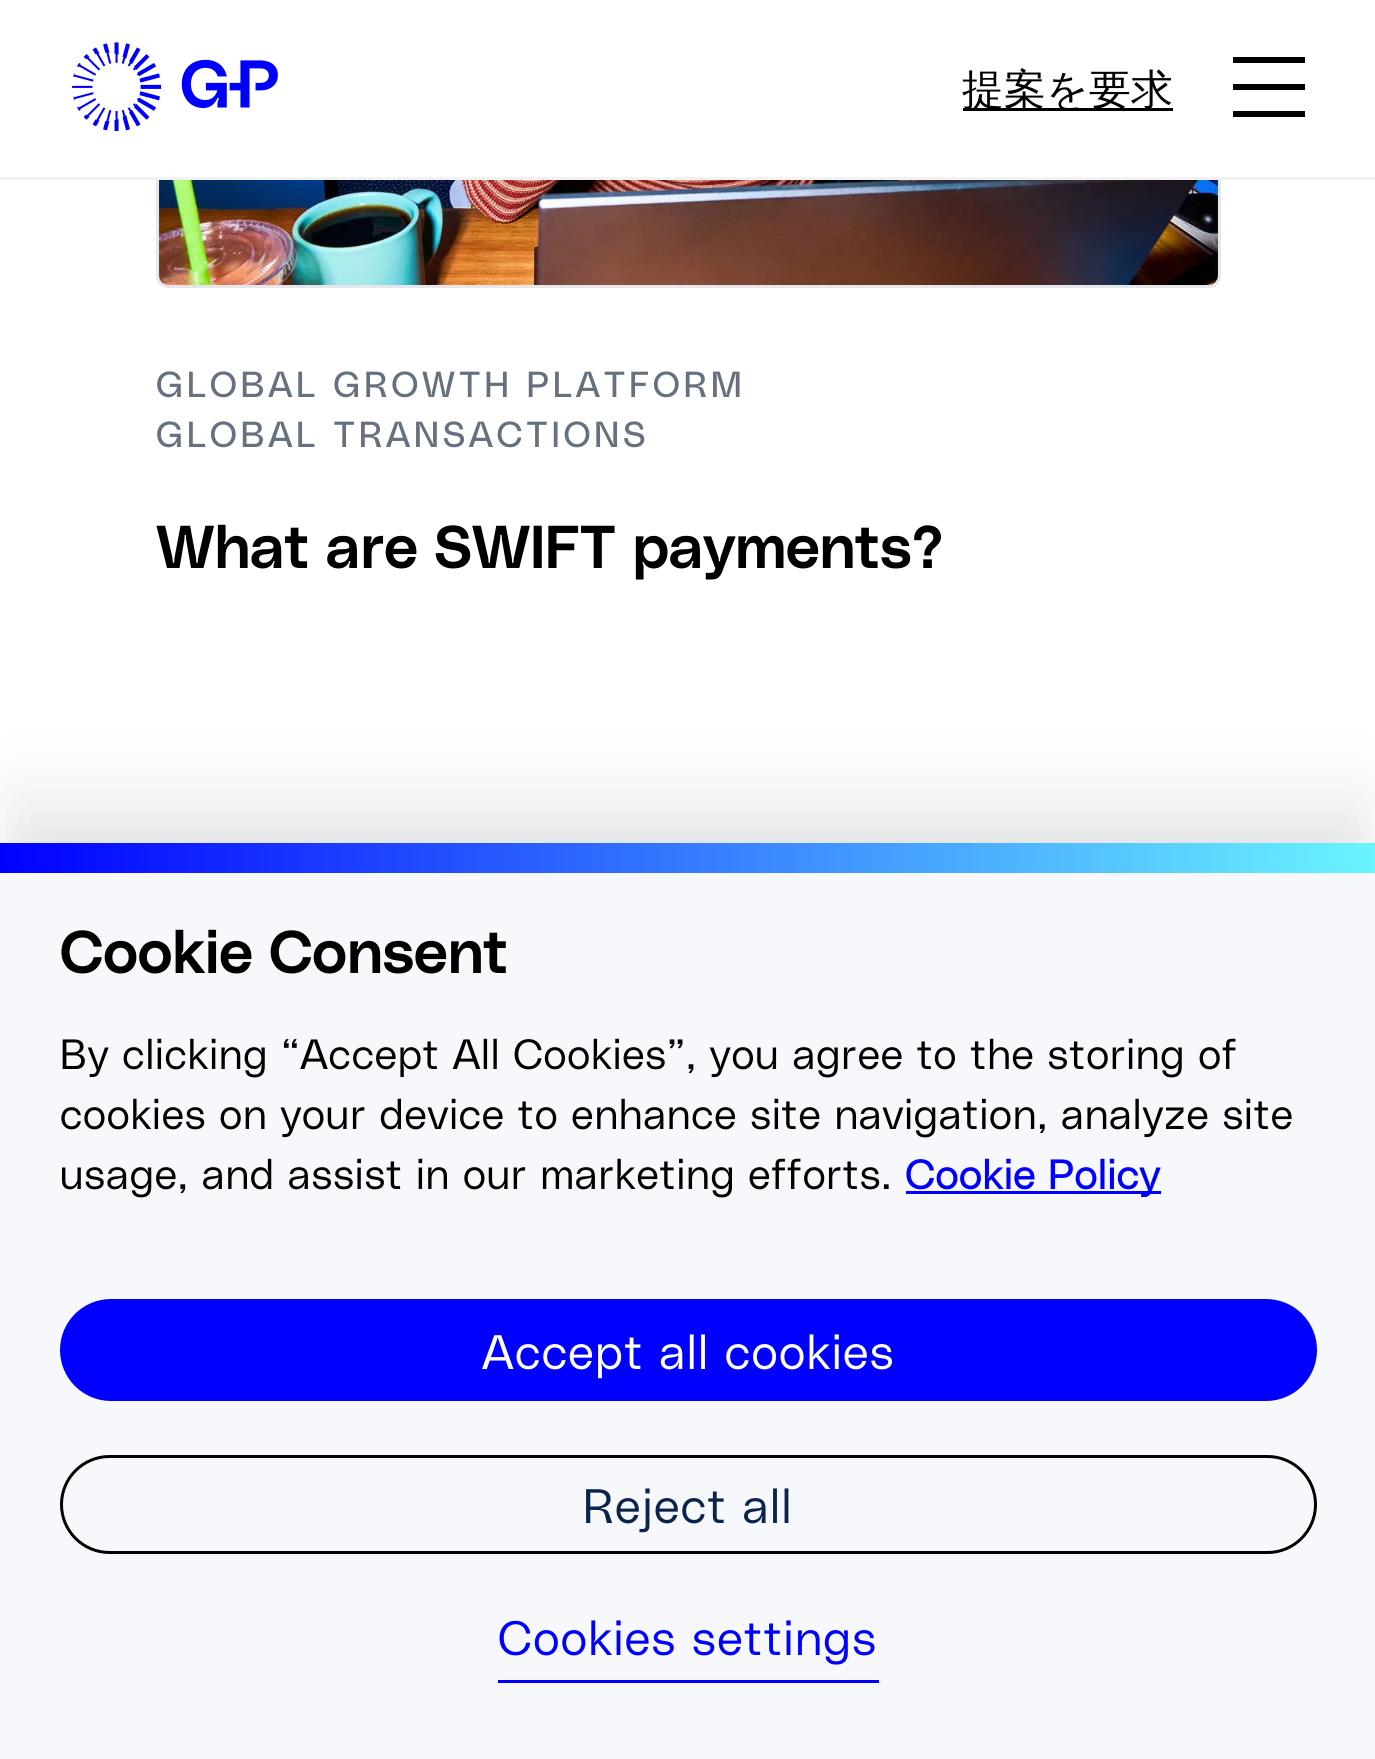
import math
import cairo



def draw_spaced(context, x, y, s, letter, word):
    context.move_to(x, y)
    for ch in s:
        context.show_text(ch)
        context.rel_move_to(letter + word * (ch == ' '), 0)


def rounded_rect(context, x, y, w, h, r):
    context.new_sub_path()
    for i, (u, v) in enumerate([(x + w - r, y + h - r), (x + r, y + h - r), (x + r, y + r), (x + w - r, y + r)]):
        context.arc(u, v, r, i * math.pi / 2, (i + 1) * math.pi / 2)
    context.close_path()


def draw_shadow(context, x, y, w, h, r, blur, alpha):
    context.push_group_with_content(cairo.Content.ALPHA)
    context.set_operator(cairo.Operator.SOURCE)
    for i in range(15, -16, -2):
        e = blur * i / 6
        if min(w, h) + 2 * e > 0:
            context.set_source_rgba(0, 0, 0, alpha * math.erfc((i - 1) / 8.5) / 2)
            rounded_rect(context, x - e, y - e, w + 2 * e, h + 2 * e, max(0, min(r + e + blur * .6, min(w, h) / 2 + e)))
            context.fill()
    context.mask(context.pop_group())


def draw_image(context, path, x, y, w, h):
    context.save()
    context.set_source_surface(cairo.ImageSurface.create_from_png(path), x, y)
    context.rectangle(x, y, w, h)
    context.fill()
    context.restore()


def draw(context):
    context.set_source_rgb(1, 1, 1)
    context.paint()
    context.set_source_rgb(246 / 255, 248 / 255, 252 / 255)
    rounded_rect(context, 157.5, -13.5, 1062, 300, 10.5)
    context.fill_preserve()
    context.set_source_rgb(229 / 255, 231 / 255, 235 / 255)
    context.set_line_width(3)
    context.stroke()
    context.set_source_rgb(1, 1, 1)
    context.rectangle(156, 0, 1065, 177)
    context.fill()
    context.set_source_rgb(242 / 255, 242 / 255, 242 / 255)
    context.rectangle(0, 177, 1375, 3)
    context.fill()
    draw_image(context, "images/1.png", 72, 42, 206, 89)
    context.set_source_rgb(0, 0, 0)
    context.rectangle(963, 108, 210, 3)
    context.fill()
    context.rectangle(1233, 57, 72, 6)
    context.fill()
    context.rectangle(1233, 84, 72, 6)
    context.fill()
    context.rectangle(1233, 111, 72, 6)
    context.fill()
    draw_image(context, "images/2.png", 159, 180, 1059, 105)
    context.set_source_rgb(45 / 255, 53 / 255, 61 / 255)
    draw_shadow(context, 12, 795, 1353, 894, 0, 36, 0.1)
    draw_shadow(context, 12, 831, 1353, 894, 0, 12, 0.05)
    context.set_source_rgb(246 / 255, 248 / 255, 252 / 255)
    context.rectangle(0, 873, 1375, 886)
    context.fill()
    gradient = cairo.LinearGradient(0, 858, 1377, 858)
    gradient.add_color_stop_rgba(0, 0, 0, 1, 1)
    gradient.add_color_stop_rgba(1, 106 / 255, 245 / 255, 1, 1)
    context.set_source(gradient)
    context.rectangle(0, 843, 1375, 30)
    context.fill()
    context.set_source_rgb(0, 0, 1)
    context.rectangle(906, 1191, 255, 3)
    context.fill()
    rounded_rect(context, 61.5, 1300.5, 1254, 99, 49.5)
    context.fill_preserve()
    context.stroke()
    rounded_rect(context, 61.5, 1456.5, 1254, 96, 48)
    context.set_source_rgb(0, 0, 0)
    context.stroke()
    context.set_source_rgb(0, 0, 1)
    context.rectangle(498, 1680, 381, 3)
    context.fill()
    context.select_font_face("WenQuanYi Zen Hei Medium")
    context.set_font_size(42)
    context.set_source_rgb(0, 0, 0)
    context.move_to(962, 104)
    context.show_text("提案を要求")
    context.select_font_face("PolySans")
    context.set_font_size(36)
    context.set_source_rgb(102 / 255, 113 / 255, 127 / 255)
    draw_spaced(context, 156, 397, "GLOBAL GROWTH PLATFORM", 3.6, 0)
    draw_spaced(context, 156, 447, "GLOBAL TRANSACTIONS", 3.6, 0)
    context.select_font_face("PolySans SemiBold")
    context.set_font_size(60)
    context.set_source_rgb(0, 0, 0)
    context.move_to(156, 568)
    context.show_text("What are SWIFT payments?")
    context.move_to(60, 973)
    context.show_text("Cookie Consent")
    context.select_font_face("PolySans Light")
    context.set_font_size(42)
    draw_spaced(context, 60, 1069, "By clicking “Accept All Cookies”, you agree to the storing of", 0.85, 0)
    draw_spaced(context, 60, 1129, "cookies on your device to enhance site navigation, analyze site", 0.85, 0)
    draw_spaced(context, 60, 1189, "usage, and assist in our marketing efforts.", 0.85, 0)
    context.select_font_face("PolySans")
    context.set_source_rgb(0, 0, 1)
    context.move_to(905, 1189)
    context.show_text("Cookie Policy")
    context.select_font_face("PolySans Light")
    context.set_font_size(48)
    context.set_source_rgb(1, 1, 1)
    draw_spaced(context, 482, 1369, "Accept all cookies", 1.4, 0)
    context.set_source_rgb(10 / 255, 36 / 255, 76 / 255)
    draw_spaced(context, 583, 1523, "Reject all", 1.4, 0)
    context.set_source_rgb(0, 0, 1)
    draw_spaced(context, 498, 1655, "Cookies settings", 1.4, 0)


surface = cairo.ImageSurface(cairo.Format.RGB24, 1375, 1759)
context = cairo.Context(surface)
options = cairo.FontOptions()
options.set_hint_metrics(cairo.HintMetrics.OFF)
options.set_hint_style(cairo.HintStyle.NONE)
context.set_font_options(options)
context.set_miter_limit(4)
draw(context)
surface.write_to_png("out.png")
